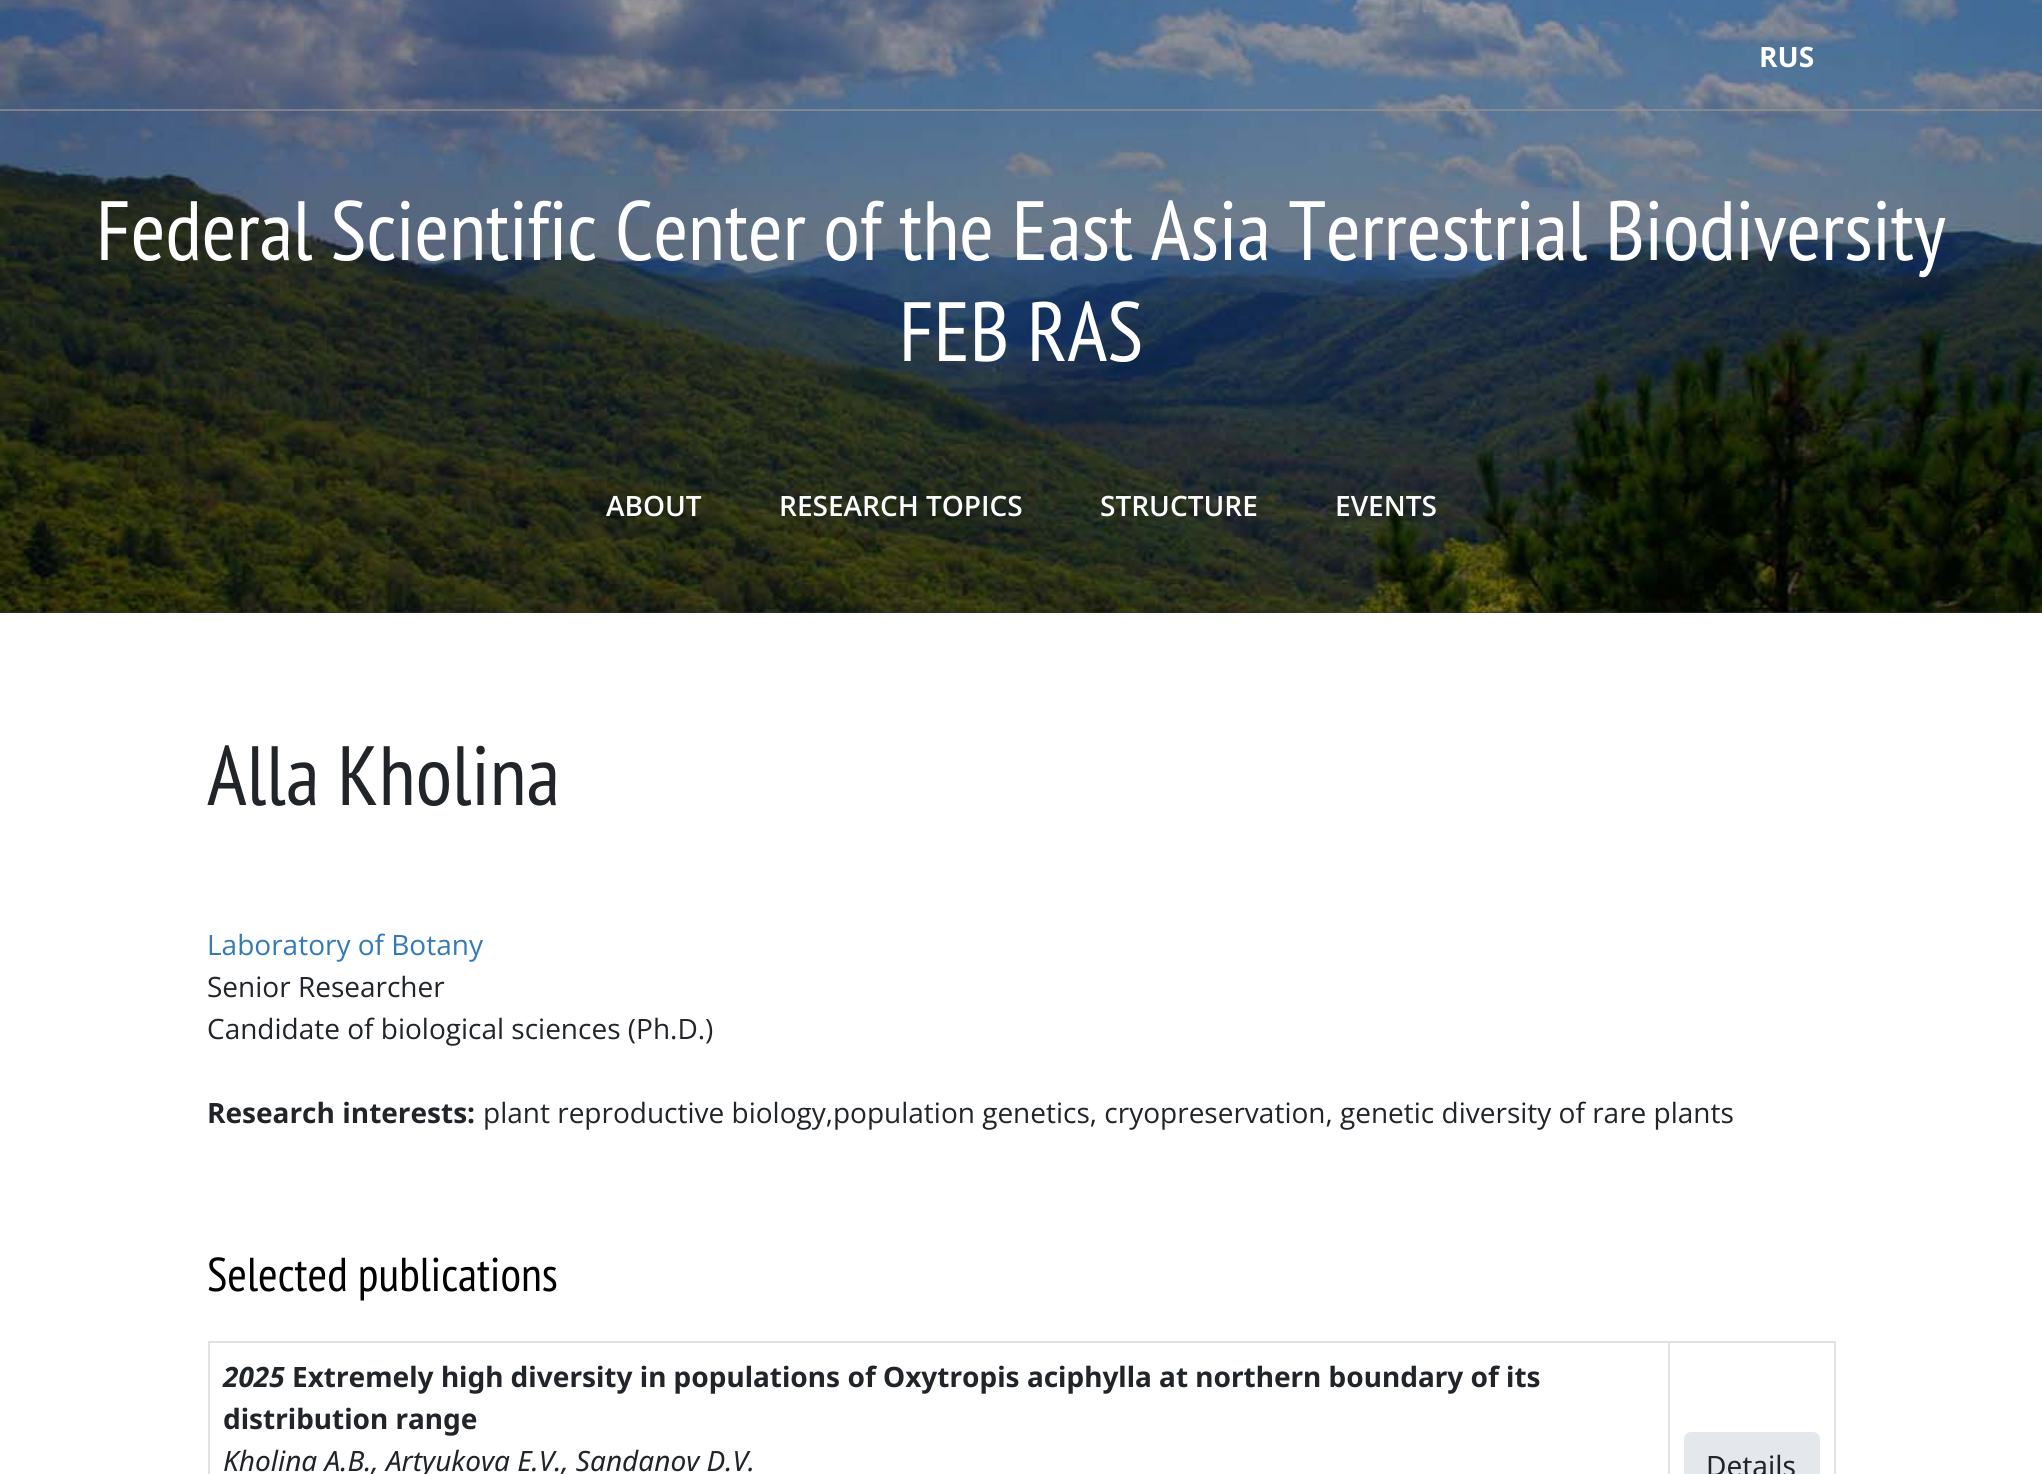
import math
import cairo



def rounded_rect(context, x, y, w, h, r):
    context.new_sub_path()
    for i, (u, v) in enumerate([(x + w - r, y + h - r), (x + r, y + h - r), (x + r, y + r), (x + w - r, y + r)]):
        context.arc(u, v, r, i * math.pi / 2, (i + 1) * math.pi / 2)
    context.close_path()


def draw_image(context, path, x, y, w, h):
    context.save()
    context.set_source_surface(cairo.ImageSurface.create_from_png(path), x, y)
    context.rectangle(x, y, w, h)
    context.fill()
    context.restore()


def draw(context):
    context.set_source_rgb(1, 1, 1)
    context.paint()
    context.set_source_rgb(49 / 255, 54 / 255, 63 / 255)
    context.rectangle(0, 612, 2042, 1)
    context.fill()
    draw_image(context, "images/1.png", 0, 0, 2042, 613)
    context.set_source_rgba(148 / 255, 147 / 255, 147 / 255, 0.69)
    context.rectangle(0, 109, 2042, 2)
    context.fill()
    context.rectangle(209, 1342, 1626, 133)
    context.set_source_rgb(222 / 255, 226 / 255, 230 / 255)
    context.stroke()
    context.rectangle(1668, 1342, 2, 132)
    context.fill()
    context.set_source_rgb(228 / 255, 231 / 255, 235 / 255)
    rounded_rect(context, 1685, 1433, 134, 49, 6)
    context.fill_preserve()
    context.stroke()
    context.select_font_face("Open Sans", cairo.FontSlant.NORMAL, cairo.FontWeight.BOLD)
    context.set_font_size(28)
    context.set_source_rgb(1, 1, 1)
    context.move_to(1759, 67)
    context.show_text("RUS")
    context.select_font_face("PT Sans Narrow")
    context.set_font_size(84)
    context.move_to(96, 260)
    context.show_text("Federal Scientific Center of the East Asia Terrestrial Biodiversity")
    context.move_to(899, 361)
    context.show_text("FEB RAS")
    context.select_font_face("Open Sans SemiBold")
    context.set_font_size(28)
    context.move_to(606, 516)
    context.show_text("ABOUT")
    context.move_to(779, 516)
    context.show_text("RESEARCH TOPICS")
    context.move_to(1100, 516)
    context.show_text("STRUCTURE")
    context.move_to(1335, 516)
    context.show_text("EVENTS")
    context.select_font_face("PT Sans Narrow")
    context.set_font_size(84)
    context.set_source_rgb(33 / 255, 37 / 255, 41 / 255)
    context.move_to(207, 805)
    context.show_text("Alla Kholina")
    context.select_font_face("Open Sans")
    context.set_font_size(28)
    context.set_source_rgb(51 / 255, 122 / 255, 183 / 255)
    context.move_to(207, 955)
    context.show_text("Laboratory of Botany")
    context.set_source_rgb(33 / 255, 37 / 255, 41 / 255)
    context.move_to(207, 997)
    context.show_text("Senior Researcher")
    context.move_to(207, 1039)
    context.show_text("Candidate of biological sciences (Ph.D.)")
    context.select_font_face("Open Sans", cairo.FontSlant.NORMAL, cairo.FontWeight.BOLD)
    context.move_to(207, 1123)
    context.show_text("Research interests:")
    context.select_font_face("Open Sans")
    context.move_to(483, 1123)
    context.show_text("plant reproductive biology,population genetics, cryopreservation, genetic diversity of rare plants")
    context.select_font_face("PT Sans Narrow")
    context.set_font_size(47.5)
    context.set_source_rgb(0, 0, 0)
    context.move_to(207, 1291)
    context.show_text("Selected publications")
    context.select_font_face("Noto Sans", cairo.FontSlant.ITALIC, cairo.FontWeight.BOLD)
    context.set_font_size(28)
    context.set_source_rgb(33 / 255, 37 / 255, 41 / 255)
    context.move_to(223, 1387)
    context.show_text("2025")
    context.select_font_face("Noto Sans", cairo.FontSlant.NORMAL, cairo.FontWeight.BOLD)
    context.move_to(292, 1387)
    context.show_text("Extremely high diversity in populations of Oxytropis aciphylla at northern boundary of its")
    context.move_to(223, 1429)
    context.show_text("distribution range")
    context.select_font_face("Noto Sans", cairo.FontSlant.ITALIC)
    context.move_to(223, 1471)
    context.show_text("Kholina A.B., Artyukova E.V., Sandanov D.V.")
    context.select_font_face("Noto Sans")
    context.move_to(1706, 1476)
    context.show_text("Details")


surface = cairo.ImageSurface(cairo.Format.RGB24, 2042, 1474)
context = cairo.Context(surface)
options = cairo.FontOptions()
options.set_hint_metrics(cairo.HintMetrics.OFF)
options.set_hint_style(cairo.HintStyle.NONE)
context.set_font_options(options)
context.set_miter_limit(4)
draw(context)
surface.write_to_png("out.png")
